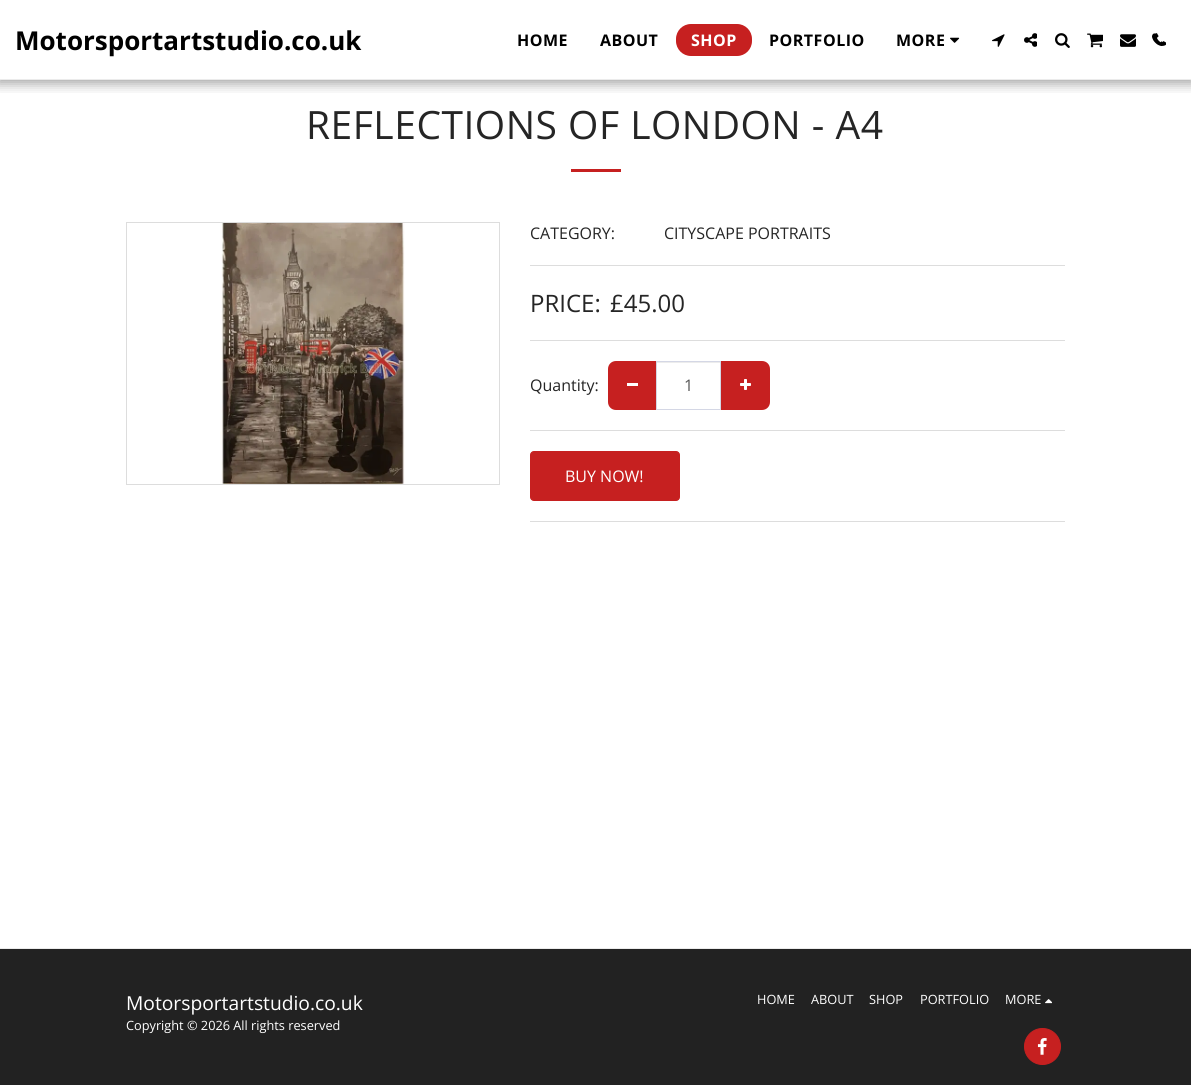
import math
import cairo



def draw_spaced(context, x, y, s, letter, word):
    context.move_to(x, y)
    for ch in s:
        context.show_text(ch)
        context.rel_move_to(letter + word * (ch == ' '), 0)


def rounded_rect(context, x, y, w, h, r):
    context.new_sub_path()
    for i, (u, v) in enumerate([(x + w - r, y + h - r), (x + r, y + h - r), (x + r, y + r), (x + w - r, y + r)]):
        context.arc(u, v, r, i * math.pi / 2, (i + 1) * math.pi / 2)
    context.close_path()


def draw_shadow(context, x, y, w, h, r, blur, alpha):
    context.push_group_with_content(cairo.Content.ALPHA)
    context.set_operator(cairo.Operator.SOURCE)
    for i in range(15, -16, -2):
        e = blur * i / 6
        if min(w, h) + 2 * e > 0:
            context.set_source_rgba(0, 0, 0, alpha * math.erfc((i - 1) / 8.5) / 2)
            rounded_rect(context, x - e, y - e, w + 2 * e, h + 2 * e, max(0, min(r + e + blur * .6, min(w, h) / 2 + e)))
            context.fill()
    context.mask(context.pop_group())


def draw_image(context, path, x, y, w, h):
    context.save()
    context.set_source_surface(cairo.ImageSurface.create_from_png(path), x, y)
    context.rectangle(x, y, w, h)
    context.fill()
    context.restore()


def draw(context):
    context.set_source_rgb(1, 1, 1)
    context.paint()
    context.save()
    context.rectangle(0, 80, 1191, 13)
    context.clip()
    context.set_source_rgb(0, 0, 0)
    draw_shadow(context, -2, 0, 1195, 84, 0, 6, 0.35)
    context.restore()
    context.set_source_rgb(235 / 255, 235 / 255, 235 / 255)
    context.rectangle(0, 79, 1191, 1)
    context.fill()
    context.set_source_rgb(198 / 255, 32 / 255, 32 / 255)
    rounded_rect(context, 676, 24, 76, 32, 15)
    context.fill()
    draw_image(context, "images/1.png", 950, 37, 10, 6)
    draw_image(context, "images/2.png", 992, 34, 13, 13)
    draw_image(context, "images/3.png", 1024, 33, 13, 14)
    draw_image(context, "images/4.png", 1055, 33, 15, 15)
    draw_image(context, "images/5.png", 1087, 33, 16, 15)
    draw_image(context, "images/6.png", 1120, 34, 16, 13)
    draw_image(context, "images/7.png", 1154, 33, 12, 13)
    draw_image(context, "images/8.png", 1152, 33, 12, 13)
    context.rectangle(571, 169, 50, 3)
    context.fill()
    context.rectangle(126.5, 222.5, 373, 262)
    context.set_source_rgb(221 / 255, 221 / 255, 221 / 255)
    context.set_line_width(1)
    context.stroke()
    draw_image(context, "images/9.png", 220, 223, 185, 261)
    context.rectangle(530, 265, 535, 1)
    context.fill()
    context.rectangle(530, 340, 535, 1)
    context.fill()
    context.set_source_rgb(198 / 255, 32 / 255, 32 / 255)
    context.new_path()
    context.move_to(616, 361)
    context.line_to(657, 361)
    context.line_to(657, 410)
    context.line_to(616, 410)
    context.curve_to(611.5, 410, 608, 406.5, 608, 402)
    context.line_to(608, 369)
    context.curve_to(608, 364.5, 611.5, 361, 616, 361)
    context.close_path()
    context.fill()
    context.set_source_rgb(1, 1, 1)
    context.rectangle(627, 383, 11, 3)
    context.fill()
    context.set_source_rgb(236 / 255, 236 / 255, 236 / 255)
    context.rectangle(657, 362, 63, 1)
    context.fill()
    context.set_source_rgb(198 / 255, 32 / 255, 32 / 255)
    context.new_path()
    context.move_to(720, 361)
    context.line_to(762, 361)
    context.curve_to(766.5, 361, 770, 364.5, 770, 369)
    context.line_to(770, 402)
    context.curve_to(770, 406.5, 766.5, 410, 762, 410)
    context.line_to(720, 410)
    context.close_path()
    context.fill()
    context.rectangle(656.5, 361.5, 64, 48)
    context.set_source_rgb(212 / 255, 215 / 255, 229 / 255)
    context.stroke()
    draw_image(context, "images/10.png", 740, 379, 11, 11)
    context.set_source_rgb(221 / 255, 221 / 255, 221 / 255)
    context.rectangle(530, 430, 535, 1)
    context.fill()
    context.set_source_rgb(198 / 255, 32 / 255, 32 / 255)
    rounded_rect(context, 530.5, 451.5, 149, 49, 3.5)
    context.fill_preserve()
    context.stroke()
    context.set_source_rgb(221 / 255, 221 / 255, 221 / 255)
    context.rectangle(530, 521, 535, 1)
    context.fill()
    context.set_source_rgb(34 / 255, 34 / 255, 34 / 255)
    context.rectangle(0, 949, 1191, 136)
    context.fill()
    context.set_source_rgb(235 / 255, 235 / 255, 235 / 255)
    context.rectangle(0, 948, 1191, 1)
    context.fill()
    draw_image(context, "images/11.png", 1045, 999, 7, 5)
    context.set_source_rgb(198 / 255, 32 / 255, 32 / 255)
    context.arc(1042.5, 1046.5, 18, 0, 2 * math.pi)
    context.fill_preserve()
    context.stroke()
    draw_image(context, "images/12.png", 1037, 1038, 10, 17)
    context.select_font_face("Open Sans", cairo.FontSlant.NORMAL, cairo.FontWeight.BOLD)
    context.set_font_size(26)
    context.set_source_rgb(0, 0, 0)
    context.move_to(15, 50)
    context.show_text("Motorsportartstudio.co.uk")
    context.set_font_size(16)
    draw_spaced(context, 517, 46, "HOME", 0.5, 0)
    draw_spaced(context, 600, 46, "ABOUT", 0.5, 0)
    context.set_source_rgb(1, 1, 1)
    draw_spaced(context, 691, 46, "SHOP", 0.5, 0)
    context.set_source_rgb(0, 0, 0)
    draw_spaced(context, 769, 46, "PORTFOLIO", 0.5, 0)
    draw_spaced(context, 896, 46, "MORE", 0.5, 0)
    context.select_font_face("Open Sans")
    context.set_font_size(39)
    context.set_source_rgb(37 / 255, 37 / 255, 37 / 255)
    draw_spaced(context, 306, 139, "REFLECTIONS OF LONDON - A4", 0.5, 0)
    context.set_font_size(16)
    context.move_to(530, 239)
    context.show_text("CATEGORY:")
    context.move_to(664, 239)
    context.show_text("CITYSCAPE PORTRAITS")
    context.set_font_size(24)
    context.move_to(530, 312)
    context.show_text("PRICE:")
    context.move_to(610, 312)
    context.show_text("£45.00")
    context.set_font_size(16)
    context.move_to(530, 391)
    context.show_text("Quantity:")
    context.set_source_rgb(85 / 255, 85 / 255, 85 / 255)
    context.move_to(684, 391)
    context.show_text("1")
    context.set_source_rgb(1, 1, 1)
    context.move_to(565, 482)
    context.show_text("BUY NOW!")
    context.set_font_size(19.25)
    context.move_to(126, 1010)
    context.show_text("Motorsportartstudio.co.uk")
    context.set_font_size(12.75)
    context.move_to(126, 1030)
    context.show_text("Copyright © 2026 All rights reserved")
    context.move_to(757, 1004)
    context.show_text("HOME")
    context.move_to(811, 1004)
    context.show_text("ABOUT")
    context.move_to(869, 1004)
    context.show_text("SHOP")
    context.move_to(920, 1004)
    context.show_text("PORTFOLIO")
    context.move_to(1005, 1004)
    context.show_text("MORE")


surface = cairo.ImageSurface(cairo.Format.RGB24, 1191, 1085)
context = cairo.Context(surface)
options = cairo.FontOptions()
options.set_hint_metrics(cairo.HintMetrics.OFF)
options.set_hint_style(cairo.HintStyle.NONE)
context.set_font_options(options)
context.set_miter_limit(4)
draw(context)
surface.write_to_png("out.png")
